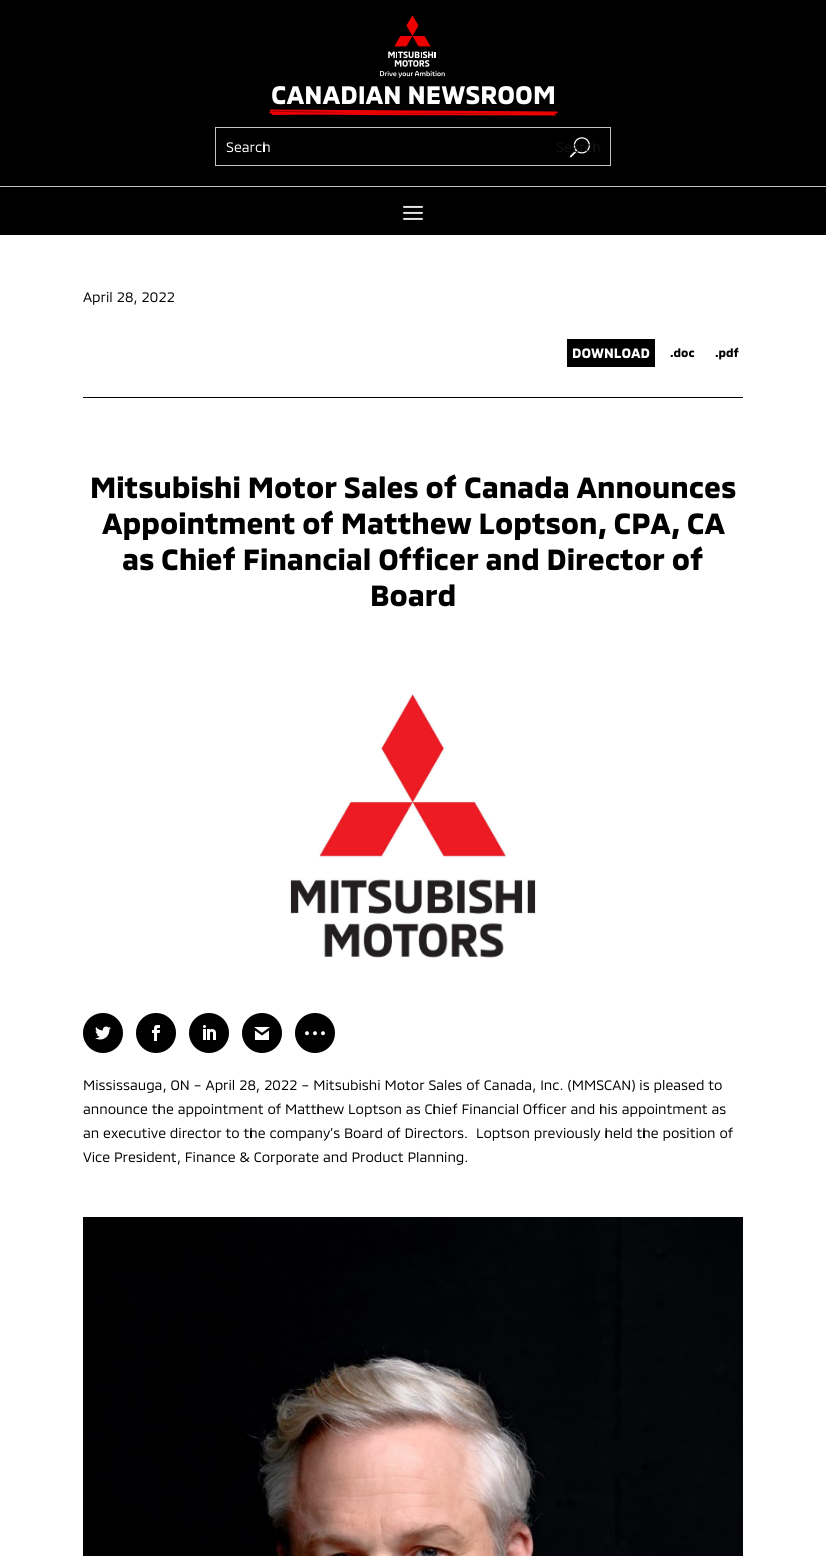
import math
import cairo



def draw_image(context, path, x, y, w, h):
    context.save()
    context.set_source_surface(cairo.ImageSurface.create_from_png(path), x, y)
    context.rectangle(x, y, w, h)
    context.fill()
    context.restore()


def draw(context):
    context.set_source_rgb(1, 1, 1)
    context.paint()
    context.set_source_rgb(0, 0, 0)
    context.rectangle(0, 0, 826, 235)
    context.fill()
    draw_image(context, "images/1.png", 380, 15, 65, 63)
    context.new_path()
    context.move_to(269.5, 112.5)
    context.curve_to(363.5, 115, 454, 114, 555.5, 114.5)
    context.set_source_rgb(237 / 255, 0, 0)
    context.stroke()
    context.new_path()
    context.move_to(557.5, 112.5)
    context.line_to(270, 110.5)
    context.stroke()
    context.new_path()
    context.move_to(272, 114)
    context.curve_to(369, 113, 466, 110.5, 554.5, 114)
    context.stroke()
    context.rectangle(215.5, 127.5, 395, 38)
    context.set_source_rgb(191 / 255, 194 / 255, 196 / 255)
    context.set_line_width(1)
    context.stroke()
    draw_image(context, "images/2.png", 570, 137, 20, 21)
    context.rectangle(0, 186, 826, 1)
    context.fill()
    draw_image(context, "images/3.png", 403, 205, 20, 15)
    context.set_source_rgb(0, 0, 0)
    context.rectangle(567, 339, 88, 28)
    context.fill()
    context.rectangle(83, 397, 660, 1)
    context.fill()
    draw_image(context, "images/4.png", 290, 694, 246, 264)
    context.arc(103, 1033, 20, 0, 2 * math.pi)
    context.fill()
    draw_image(context, "images/5.png", 95, 1026, 16, 14)
    context.arc(156, 1033, 20, 0, 2 * math.pi)
    context.fill()
    draw_image(context, "images/6.png", 152, 1025, 8, 16)
    context.arc(209, 1033, 20, 0, 2 * math.pi)
    context.fill()
    draw_image(context, "images/7.png", 203, 1025, 13, 15)
    context.arc(262, 1033, 20, 0, 2 * math.pi)
    context.fill()
    draw_image(context, "images/8.png", 254, 1027, 16, 13)
    context.arc(315, 1033, 20, 0, 2 * math.pi)
    context.fill()
    draw_image(context, "images/9.png", 305, 1031, 20, 5)
    draw_image(context, "images/10.png", 83, 1217, 660, 339)
    context.select_font_face("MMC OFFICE", cairo.FontSlant.NORMAL, cairo.FontWeight.BOLD)
    context.set_font_size(26)
    context.set_source_rgb(1, 1, 1)
    context.move_to(271, 104)
    context.show_text("CANADIAN NEWSROOM")
    context.select_font_face("MMC OFFICE")
    context.set_font_size(14)
    context.move_to(226, 152)
    context.show_text("Search")
    context.set_source_rgb(18 / 255, 18 / 255, 18 / 255)
    context.move_to(556, 152)
    context.show_text("Search")
    context.set_source_rgb(0, 0, 0)
    context.move_to(83, 302)
    context.show_text("April 28, 2022")
    context.select_font_face("MMC OFFICE", cairo.FontSlant.NORMAL, cairo.FontWeight.BOLD)
    context.set_source_rgb(1, 1, 1)
    context.move_to(572, 358)
    context.show_text("DOWNLOAD")
    context.set_font_size(12)
    context.set_source_rgb(0, 0, 0)
    context.move_to(670, 357)
    context.show_text(".doc")
    context.move_to(715, 357)
    context.show_text(".pdf")
    context.set_font_size(30)
    context.move_to(90, 498)
    context.show_text("Mitsubishi Motor Sales of Canada Announces")
    context.move_to(102, 534)
    context.show_text("Appointment of Matthew Loptson, CPA, CA")
    context.move_to(122, 570)
    context.show_text("as Chief Financial Officer and Director of")
    context.move_to(370, 606)
    context.show_text("Board")
    context.select_font_face("MMC OFFICE")
    context.set_font_size(14)
    context.move_to(83, 1090)
    context.show_text("Mississauga, ON – April 28, 2022 – Mitsubishi Motor Sales of Canada, Inc. (MMSCAN) is pleased to")
    context.move_to(83, 1114)
    context.show_text("announce the appointment of Matthew Loptson as Chief Financial Officer and his appointment as")
    context.move_to(83, 1138)
    context.show_text("an executive director to the company’s Board of Directors.  Loptson previously held the position of")
    context.move_to(83, 1162)
    context.show_text("Vice President, Finance & Corporate and Product Planning.")


surface = cairo.ImageSurface(cairo.Format.RGB24, 826, 1556)
context = cairo.Context(surface)
options = cairo.FontOptions()
options.set_hint_metrics(cairo.HintMetrics.OFF)
options.set_hint_style(cairo.HintStyle.NONE)
context.set_font_options(options)
context.set_miter_limit(4)
draw(context)
surface.write_to_png("out.png")
